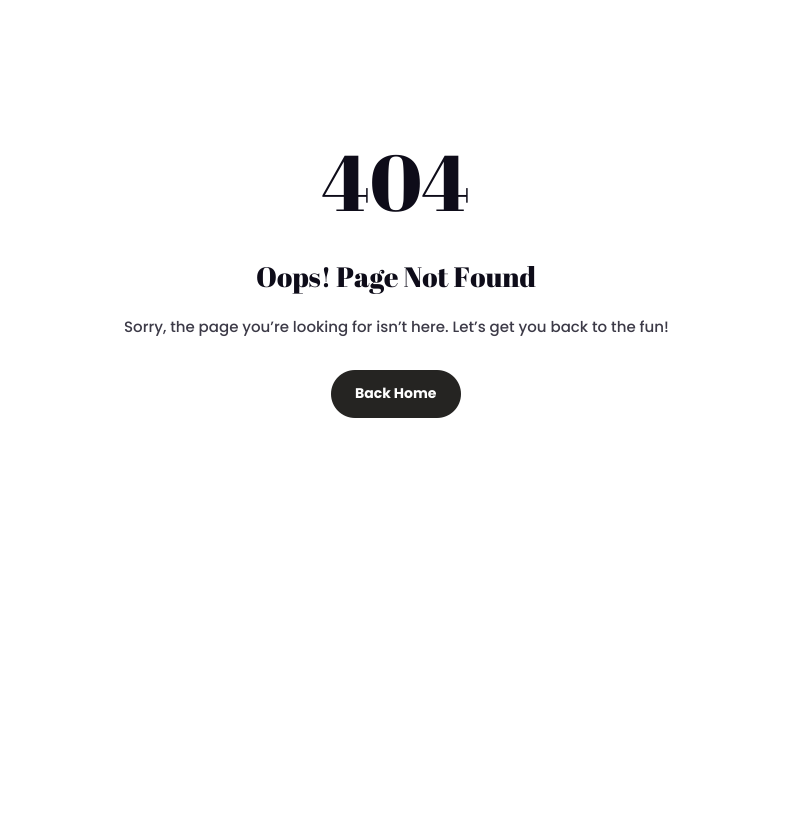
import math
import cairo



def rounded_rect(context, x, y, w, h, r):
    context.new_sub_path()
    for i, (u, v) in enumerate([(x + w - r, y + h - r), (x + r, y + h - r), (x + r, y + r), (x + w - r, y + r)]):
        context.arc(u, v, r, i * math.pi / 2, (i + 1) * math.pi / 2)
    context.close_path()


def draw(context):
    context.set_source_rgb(1, 1, 1)
    context.paint()
    context.set_source_rgb(37 / 255, 36 / 255, 34 / 255)
    rounded_rect(context, 331, 370, 130, 48, 24)
    context.fill()
    context.select_font_face("Abril Fatface")
    context.set_font_size(79)
    context.set_source_rgb(14 / 255, 12 / 255, 25 / 255)
    context.move_to(322, 211)
    context.show_text("404")
    context.set_font_size(28)
    context.move_to(256, 287)
    context.show_text("Oops! Page Not Found")
    context.select_font_face("Poppins Medium")
    context.set_font_size(15)
    context.set_source_rgb(60 / 255, 58 / 255, 71 / 255)
    context.move_to(124, 332)
    context.show_text("Sorry, the page you’re looking for isn’t here. Let’s get you back to the fun!")
    context.select_font_face("Poppins", cairo.FontSlant.NORMAL, cairo.FontWeight.BOLD)
    context.set_font_size(14)
    context.set_source_rgb(1, 1, 1)
    context.move_to(355, 398)
    context.show_text("Back Home")


surface = cairo.ImageSurface(cairo.Format.RGB24, 792, 827)
context = cairo.Context(surface)
options = cairo.FontOptions()
options.set_hint_metrics(cairo.HintMetrics.OFF)
options.set_hint_style(cairo.HintStyle.NONE)
context.set_font_options(options)
context.set_miter_limit(4)
draw(context)
surface.write_to_png("out.png")
